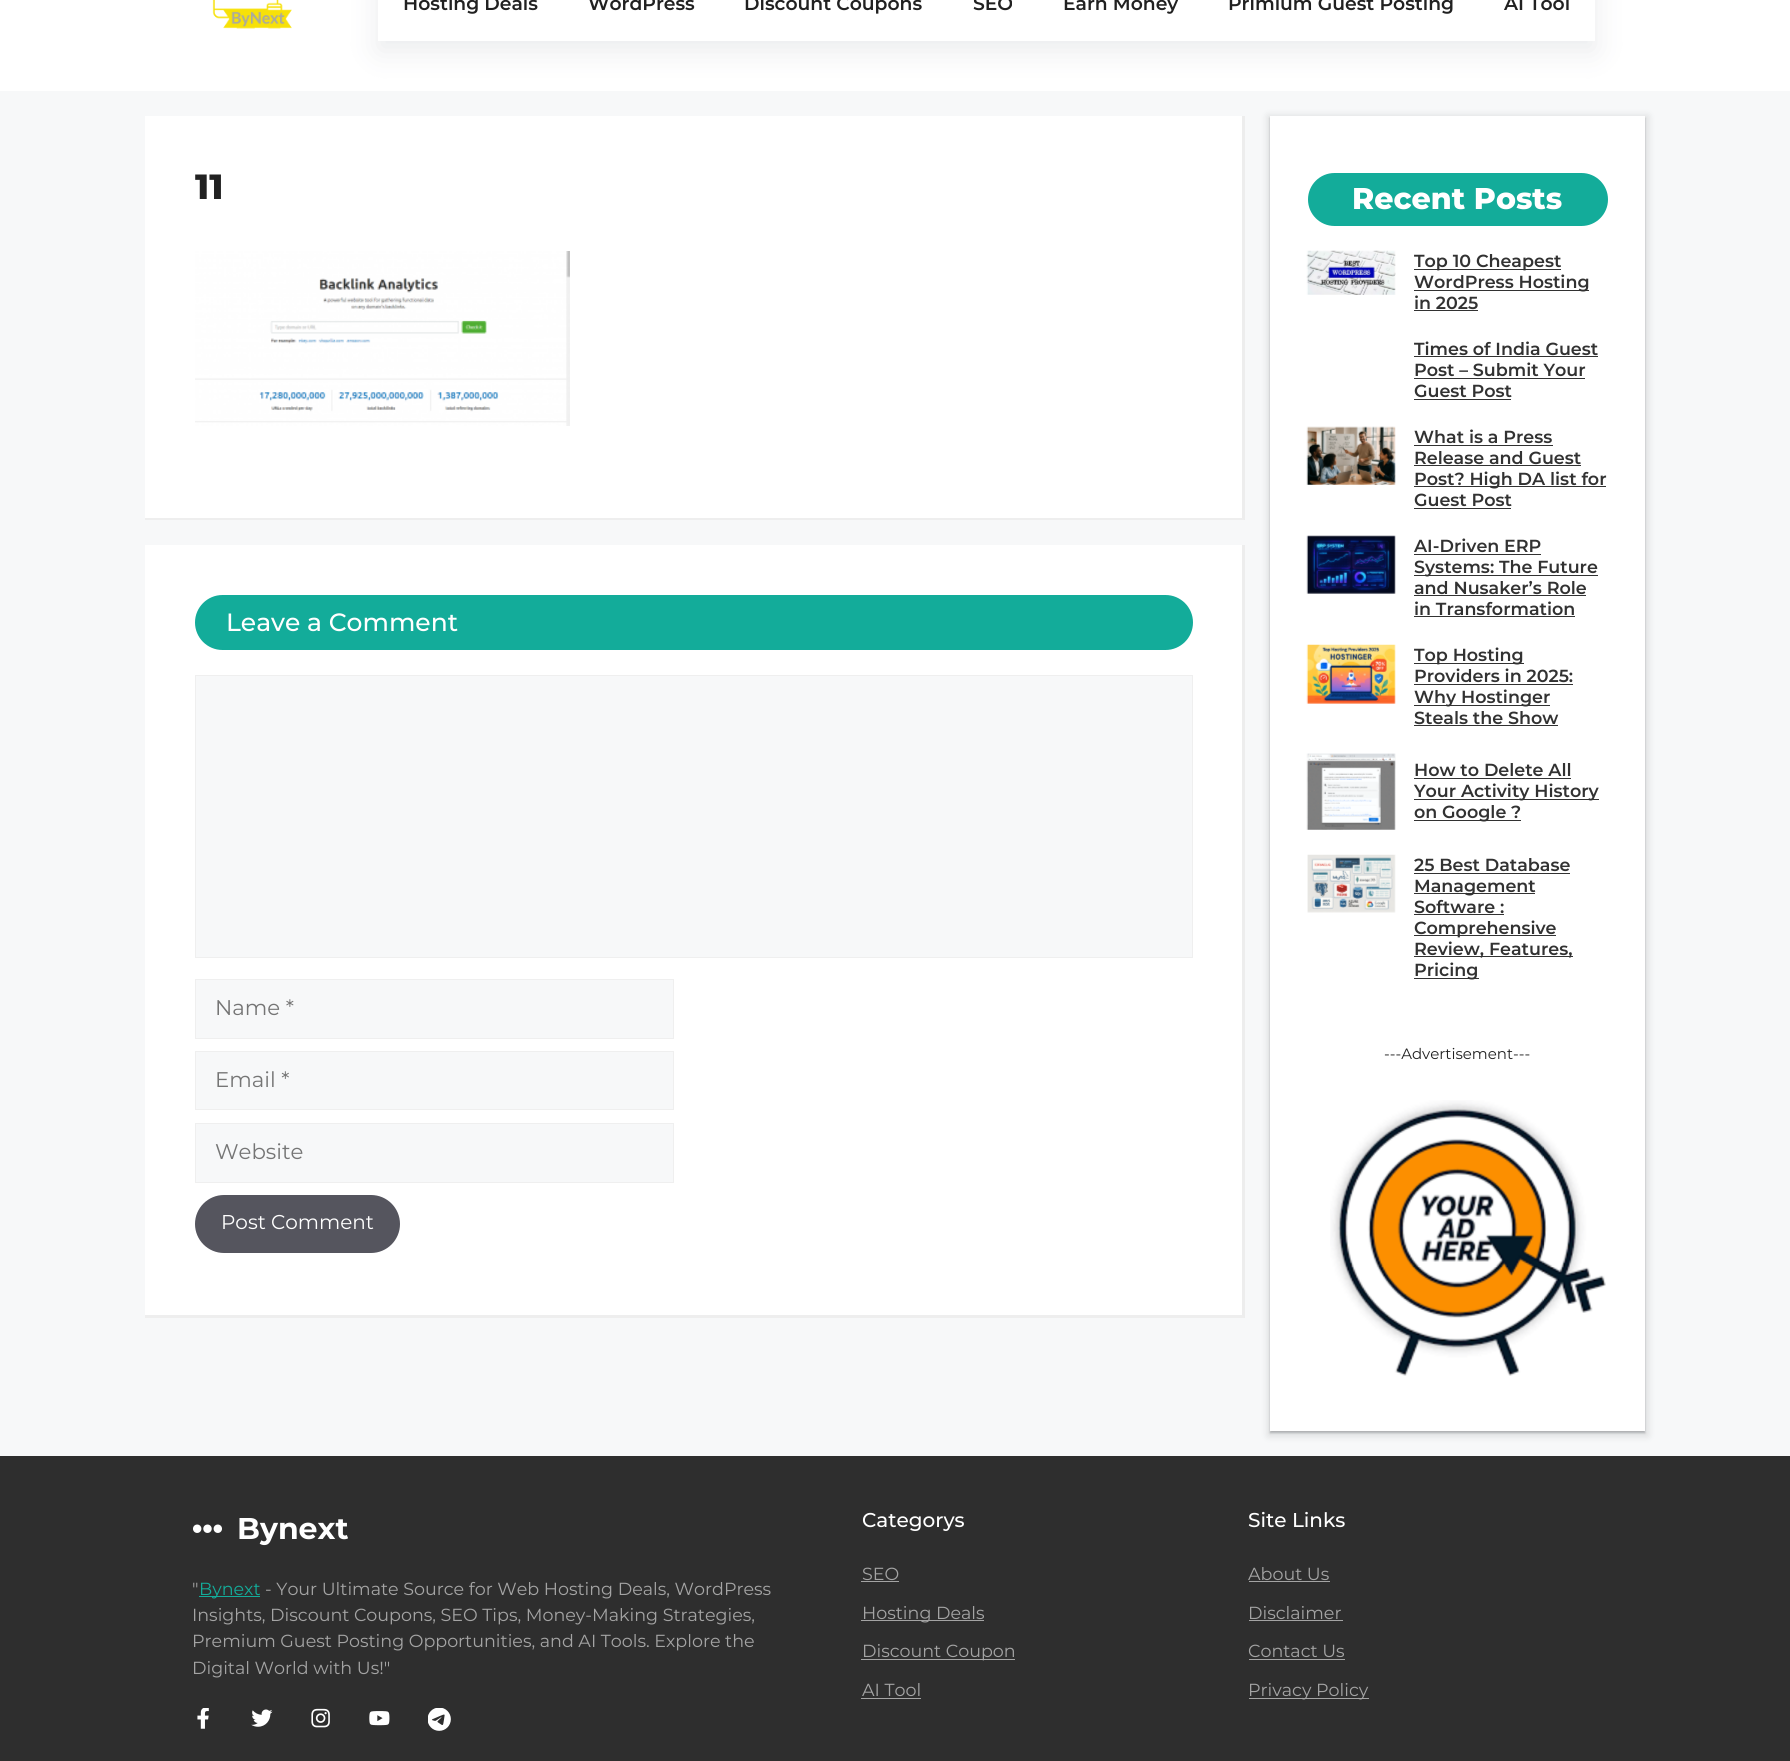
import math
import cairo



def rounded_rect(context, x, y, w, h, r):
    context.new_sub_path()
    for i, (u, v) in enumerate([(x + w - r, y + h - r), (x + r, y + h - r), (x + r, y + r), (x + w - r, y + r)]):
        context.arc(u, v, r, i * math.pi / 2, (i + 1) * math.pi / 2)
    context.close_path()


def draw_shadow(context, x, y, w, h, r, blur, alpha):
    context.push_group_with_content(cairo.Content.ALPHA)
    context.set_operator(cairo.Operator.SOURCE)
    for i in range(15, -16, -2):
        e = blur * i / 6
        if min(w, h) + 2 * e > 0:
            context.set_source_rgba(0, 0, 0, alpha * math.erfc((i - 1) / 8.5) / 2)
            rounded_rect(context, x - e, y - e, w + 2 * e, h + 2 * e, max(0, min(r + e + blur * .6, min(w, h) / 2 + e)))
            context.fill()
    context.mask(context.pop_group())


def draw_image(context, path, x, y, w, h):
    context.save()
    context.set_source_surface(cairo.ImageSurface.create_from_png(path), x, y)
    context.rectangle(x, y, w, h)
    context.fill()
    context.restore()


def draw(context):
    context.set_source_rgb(247 / 255, 248 / 255, 249 / 255)
    context.paint()
    context.set_source_rgb(1, 1, 1)
    context.rectangle(0, 0, 1790, 91)
    context.fill()
    draw_image(context, "images/1.png", 212, 0, 80, 29)
    context.save()
    context.set_fill_rule(cairo.FillRule.EVEN_ODD)
    context.new_path()
    context.move_to(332, 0)
    context.line_to(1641, 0)
    context.line_to(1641, 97)
    context.line_to(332, 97)
    context.close_path()
    context.move_to(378, -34)
    context.line_to(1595, -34)
    context.line_to(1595, 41)
    context.line_to(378, 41)
    context.close_path()
    context.clip()
    context.set_source_rgb(149 / 255, 157 / 255, 165 / 255)
    draw_shadow(context, 378, -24, 1217, 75, 0, 15, 0.2)
    context.restore()
    context.rectangle(145, 116, 1100, 404)
    context.fill()
    context.set_source_rgb(237 / 255, 237 / 255, 237 / 255)
    context.new_path()
    context.move_to(1245, 116)
    context.line_to(1245, 520)
    context.line_to(1242, 518)
    context.line_to(1242, 116)
    context.close_path()
    context.fill()
    context.set_source_rgba(0, 0, 0, 0.07)
    context.new_path()
    context.move_to(1245, 520)
    context.line_to(145, 520)
    context.line_to(145, 518)
    context.line_to(1242, 518)
    context.close_path()
    context.fill()
    draw_image(context, "images/2.png", 195, 251, 375, 175)
    context.set_source_rgb(1, 1, 1)
    context.rectangle(145, 545, 1100, 773)
    context.fill()
    context.set_source_rgb(237 / 255, 237 / 255, 237 / 255)
    context.new_path()
    context.move_to(1245, 545)
    context.line_to(1245, 1318)
    context.line_to(1242, 1315)
    context.line_to(1242, 545)
    context.close_path()
    context.fill()
    context.set_source_rgba(0, 0, 0, 0.07)
    context.new_path()
    context.move_to(1245, 1318)
    context.line_to(145, 1318)
    context.line_to(145, 1315)
    context.line_to(1242, 1315)
    context.close_path()
    context.fill()
    context.set_source_rgb(19 / 255, 172 / 255, 154 / 255)
    rounded_rect(context, 195, 595, 998, 55, 27.5)
    context.fill()
    context.set_source_rgb(247 / 255, 248 / 255, 249 / 255)
    context.rectangle(195.5, 675.5, 997, 282)
    context.fill_preserve()
    context.set_source_rgb(239 / 255, 239 / 255, 239 / 255)
    context.set_line_width(1)
    context.stroke()
    context.set_source_rgb(247 / 255, 248 / 255, 249 / 255)
    context.rectangle(195.5, 979.5, 478, 59)
    context.fill_preserve()
    context.set_source_rgb(239 / 255, 239 / 255, 239 / 255)
    context.stroke()
    context.set_source_rgb(247 / 255, 248 / 255, 249 / 255)
    context.rectangle(195.5, 1051.5, 478, 58)
    context.fill_preserve()
    context.set_source_rgb(239 / 255, 239 / 255, 239 / 255)
    context.stroke()
    context.set_source_rgb(247 / 255, 248 / 255, 249 / 255)
    context.rectangle(195.5, 1123.5, 478, 59)
    context.fill_preserve()
    context.set_source_rgb(239 / 255, 239 / 255, 239 / 255)
    context.stroke()
    context.set_source_rgb(85 / 255, 85 / 255, 94 / 255)
    rounded_rect(context, 195, 1195, 205, 58, 29)
    context.fill()
    context.set_source_rgb(60 / 255, 64 / 255, 67 / 255)
    draw_shadow(context, 1268, 116, 380, 1320, 0, 4, 0.15)
    draw_shadow(context, 1270, 118, 375, 1315, 0, 1, 0.3)
    context.set_source_rgb(1, 1, 1)
    context.rectangle(1270, 116, 375, 1315)
    context.fill()
    context.set_source_rgb(19 / 255, 172 / 255, 154 / 255)
    rounded_rect(context, 1308, 173, 300, 53, 26.5)
    context.fill()
    draw_image(context, "images/3.png", 1306, 250, 90, 45)
    context.set_source_rgb(50 / 255, 50 / 255, 50 / 255)
    context.rectangle(1414, 269, 147, 1)
    context.fill()
    context.rectangle(1414, 290, 175, 1)
    context.fill()
    context.rectangle(1414, 310, 64, 1)
    context.fill()
    context.rectangle(1414, 356, 184, 1)
    context.fill()
    context.rectangle(1414, 378, 171, 1)
    context.fill()
    context.rectangle(1414, 399, 97, 1)
    context.fill()
    draw_image(context, "images/4.png", 1306, 426, 90, 59)
    context.rectangle(1414, 445, 139, 1)
    context.fill()
    context.rectangle(1414, 465, 167, 1)
    context.fill()
    context.rectangle(1414, 486, 192, 1)
    context.fill()
    context.rectangle(1414, 508, 97, 1)
    context.fill()
    draw_image(context, "images/5.png", 1306, 535, 90, 59)
    context.rectangle(1414, 554, 127, 1)
    context.fill()
    context.rectangle(1414, 575, 184, 1)
    context.fill()
    context.rectangle(1414, 595, 172, 1)
    context.fill()
    context.rectangle(1414, 616, 161, 1)
    context.fill()
    draw_image(context, "images/6.png", 1306, 644, 90, 60)
    context.rectangle(1414, 663, 110, 1)
    context.fill()
    context.rectangle(1414, 684, 159, 1)
    context.fill()
    context.rectangle(1414, 705, 136, 1)
    context.fill()
    context.rectangle(1414, 725, 144, 1)
    context.fill()
    draw_image(context, "images/7.png", 1306, 753, 90, 77)
    context.rectangle(1414, 778, 157, 1)
    context.fill()
    context.rectangle(1414, 799, 185, 1)
    context.fill()
    context.rectangle(1414, 820, 107, 1)
    context.fill()
    draw_image(context, "images/8.png", 1307, 854, 89, 59)
    context.rectangle(1414, 873, 156, 1)
    context.fill()
    context.rectangle(1414, 893, 121, 1)
    context.fill()
    context.rectangle(1414, 914, 90, 1)
    context.fill()
    context.rectangle(1414, 935, 142, 1)
    context.fill()
    context.rectangle(1414, 956, 159, 1)
    context.fill()
    context.rectangle(1414, 978, 65, 1)
    context.fill()
    draw_image(context, "images/9.png", 1330, 1100, 276, 276)
    context.set_source_rgb(46 / 255, 46 / 255, 46 / 255)
    context.rectangle(0, 1456, 1790, 305)
    context.fill()
    draw_image(context, "images/10.png", 193, 1524, 29, 9)
    context.set_source_rgb(19 / 255, 172 / 255, 154 / 255)
    context.rectangle(199, 1596, 61, 1)
    context.fill()
    draw_image(context, "images/11.png", 197, 1708, 12, 21)
    draw_image(context, "images/12.png", 251, 1709, 22, 18)
    draw_image(context, "images/13.png", 311, 1708, 19, 20)
    draw_image(context, "images/14.png", 369, 1711, 21, 15)
    draw_image(context, "images/15.png", 428, 1708, 23, 23)
    context.set_source_rgb(164 / 255, 164 / 255, 164 / 255)
    context.rectangle(861, 1581, 38, 1)
    context.fill()
    context.rectangle(861, 1620, 123, 1)
    context.fill()
    context.rectangle(861, 1659, 154, 1)
    context.fill()
    context.rectangle(861, 1698, 60, 1)
    context.fill()
    context.rectangle(1249, 1581, 81, 1)
    context.fill()
    context.rectangle(1249, 1620, 94, 1)
    context.fill()
    context.rectangle(1249, 1659, 96, 1)
    context.fill()
    context.rectangle(1249, 1698, 120, 1)
    context.fill()
    context.select_font_face("Montserrat SemiBold")
    context.set_font_size(18.75)
    context.set_source_rgb(33 / 255, 33 / 255, 33 / 255)
    context.move_to(403, 10)
    context.show_text("Hosting Deals")
    context.move_to(588, 10)
    context.show_text("WordPress")
    context.move_to(744, 10)
    context.show_text("Discount Coupons")
    context.move_to(973, 10)
    context.show_text("SEO")
    context.move_to(1063, 10)
    context.show_text("Earn Money")
    context.move_to(1228, 10)
    context.show_text("Primium Guest Posting")
    context.move_to(1504, 10)
    context.show_text("AI Tool")
    context.select_font_face("Montserrat ExtraBold")
    context.set_font_size(35)
    context.move_to(195, 199)
    context.show_text("11")
    context.select_font_face("Montserrat Medium")
    context.set_font_size(25)
    context.set_source_rgb(1, 1, 1)
    context.move_to(226, 631)
    context.show_text("Leave a Comment")
    context.select_font_face("Montserrat")
    context.set_font_size(21.25)
    context.set_source_rgb(117 / 255, 117 / 255, 117 / 255)
    context.move_to(215, 1015)
    context.show_text("Name *")
    context.move_to(215, 1087)
    context.show_text("Email *")
    context.move_to(215, 1159)
    context.show_text("Website")
    context.set_font_size(20)
    context.set_source_rgb(1, 1, 1)
    context.move_to(221, 1229)
    context.show_text("Post Comment")
    context.select_font_face("Montserrat ExtraBold")
    context.set_font_size(30)
    context.move_to(1352, 209)
    context.show_text("Recent Posts")
    context.select_font_face("Montserrat SemiBold")
    context.set_font_size(17.5)
    context.set_source_rgb(50 / 255, 50 / 255, 50 / 255)
    context.move_to(1414, 267)
    context.show_text("Top 10 Cheapest")
    context.move_to(1414, 288)
    context.show_text("WordPress Hosting")
    context.move_to(1414, 309)
    context.show_text("in 2025")
    context.move_to(1414, 355)
    context.show_text("Times of India Guest")
    context.move_to(1414, 376)
    context.show_text("Post – Submit Your")
    context.move_to(1414, 397)
    context.show_text("Guest Post")
    context.move_to(1414, 443)
    context.show_text("What is a Press")
    context.move_to(1414, 464)
    context.show_text("Release and Guest")
    context.move_to(1414, 485)
    context.show_text("Post? High DA list for")
    context.move_to(1414, 506)
    context.show_text("Guest Post")
    context.move_to(1414, 552)
    context.show_text("AI-Driven ERP")
    context.move_to(1414, 573)
    context.show_text("Systems: The Future")
    context.move_to(1414, 594)
    context.show_text("and Nusaker’s Role")
    context.move_to(1414, 615)
    context.show_text("in Transformation")
    context.move_to(1414, 661)
    context.show_text("Top Hosting")
    context.move_to(1414, 682)
    context.show_text("Providers in 2025:")
    context.move_to(1414, 703)
    context.show_text("Why Hostinger")
    context.move_to(1414, 724)
    context.show_text("Steals the Show")
    context.move_to(1414, 776)
    context.show_text("How to Delete All")
    context.move_to(1414, 797)
    context.show_text("Your Activity History")
    context.move_to(1414, 818)
    context.show_text("on Google ?")
    context.move_to(1414, 871)
    context.show_text("25 Best Database")
    context.move_to(1414, 892)
    context.show_text("Management")
    context.move_to(1414, 913)
    context.show_text("Software :")
    context.move_to(1414, 934)
    context.show_text("Comprehensive")
    context.move_to(1414, 955)
    context.show_text("Review, Features,")
    context.move_to(1414, 976)
    context.show_text("Pricing")
    context.select_font_face("Montserrat")
    context.set_font_size(15)
    context.set_source_rgb(33 / 255, 33 / 255, 33 / 255)
    context.move_to(1384, 1059)
    context.show_text("---Advertisement---")
    context.select_font_face("Montserrat", cairo.FontSlant.NORMAL, cairo.FontWeight.BOLD)
    context.set_font_size(30)
    context.set_source_rgb(1, 1, 1)
    context.move_to(237, 1539)
    context.show_text("Bynext")
    context.select_font_face("Montserrat")
    context.set_font_size(17.5)
    context.set_source_rgb(164 / 255, 164 / 255, 164 / 255)
    context.move_to(192, 1595)
    context.show_text("\"")
    context.set_source_rgb(19 / 255, 172 / 255, 154 / 255)
    context.move_to(199, 1595)
    context.show_text("Bynext")
    context.set_source_rgb(164 / 255, 164 / 255, 164 / 255)
    context.move_to(265, 1595)
    context.show_text("- Your Ultimate Source for Web Hosting Deals, WordPress")
    context.move_to(192, 1621)
    context.show_text("Insights, Discount Coupons, SEO Tips, Money-Making Strategies,")
    context.move_to(192, 1647)
    context.show_text("Premium Guest Posting Opportunities, and AI Tools. Explore the")
    context.move_to(192, 1674)
    context.show_text("Digital World with Us!\"")
    context.select_font_face("Montserrat Medium")
    context.set_font_size(20)
    context.set_source_rgb(1, 1, 1)
    context.move_to(862, 1527)
    context.show_text("Categorys")
    context.select_font_face("Montserrat")
    context.set_font_size(17.5)
    context.set_source_rgb(164 / 255, 164 / 255, 164 / 255)
    context.move_to(862, 1580)
    context.show_text("SEO")
    context.move_to(862, 1619)
    context.show_text("Hosting Deals")
    context.move_to(862, 1657)
    context.show_text("Discount Coupon")
    context.move_to(862, 1696)
    context.show_text("AI Tool")
    context.select_font_face("Montserrat Medium")
    context.set_font_size(20)
    context.set_source_rgb(1, 1, 1)
    context.move_to(1248, 1527)
    context.show_text("Site Links")
    context.select_font_face("Montserrat")
    context.set_font_size(17.5)
    context.set_source_rgb(164 / 255, 164 / 255, 164 / 255)
    context.move_to(1248, 1580)
    context.show_text("About Us")
    context.move_to(1248, 1619)
    context.show_text("Disclaimer")
    context.move_to(1248, 1657)
    context.show_text("Contact Us")
    context.move_to(1248, 1696)
    context.show_text("Privacy Policy")


surface = cairo.ImageSurface(cairo.Format.RGB24, 1790, 1761)
context = cairo.Context(surface)
options = cairo.FontOptions()
options.set_hint_metrics(cairo.HintMetrics.OFF)
options.set_hint_style(cairo.HintStyle.NONE)
context.set_font_options(options)
context.set_miter_limit(4)
draw(context)
surface.write_to_png("out.png")
